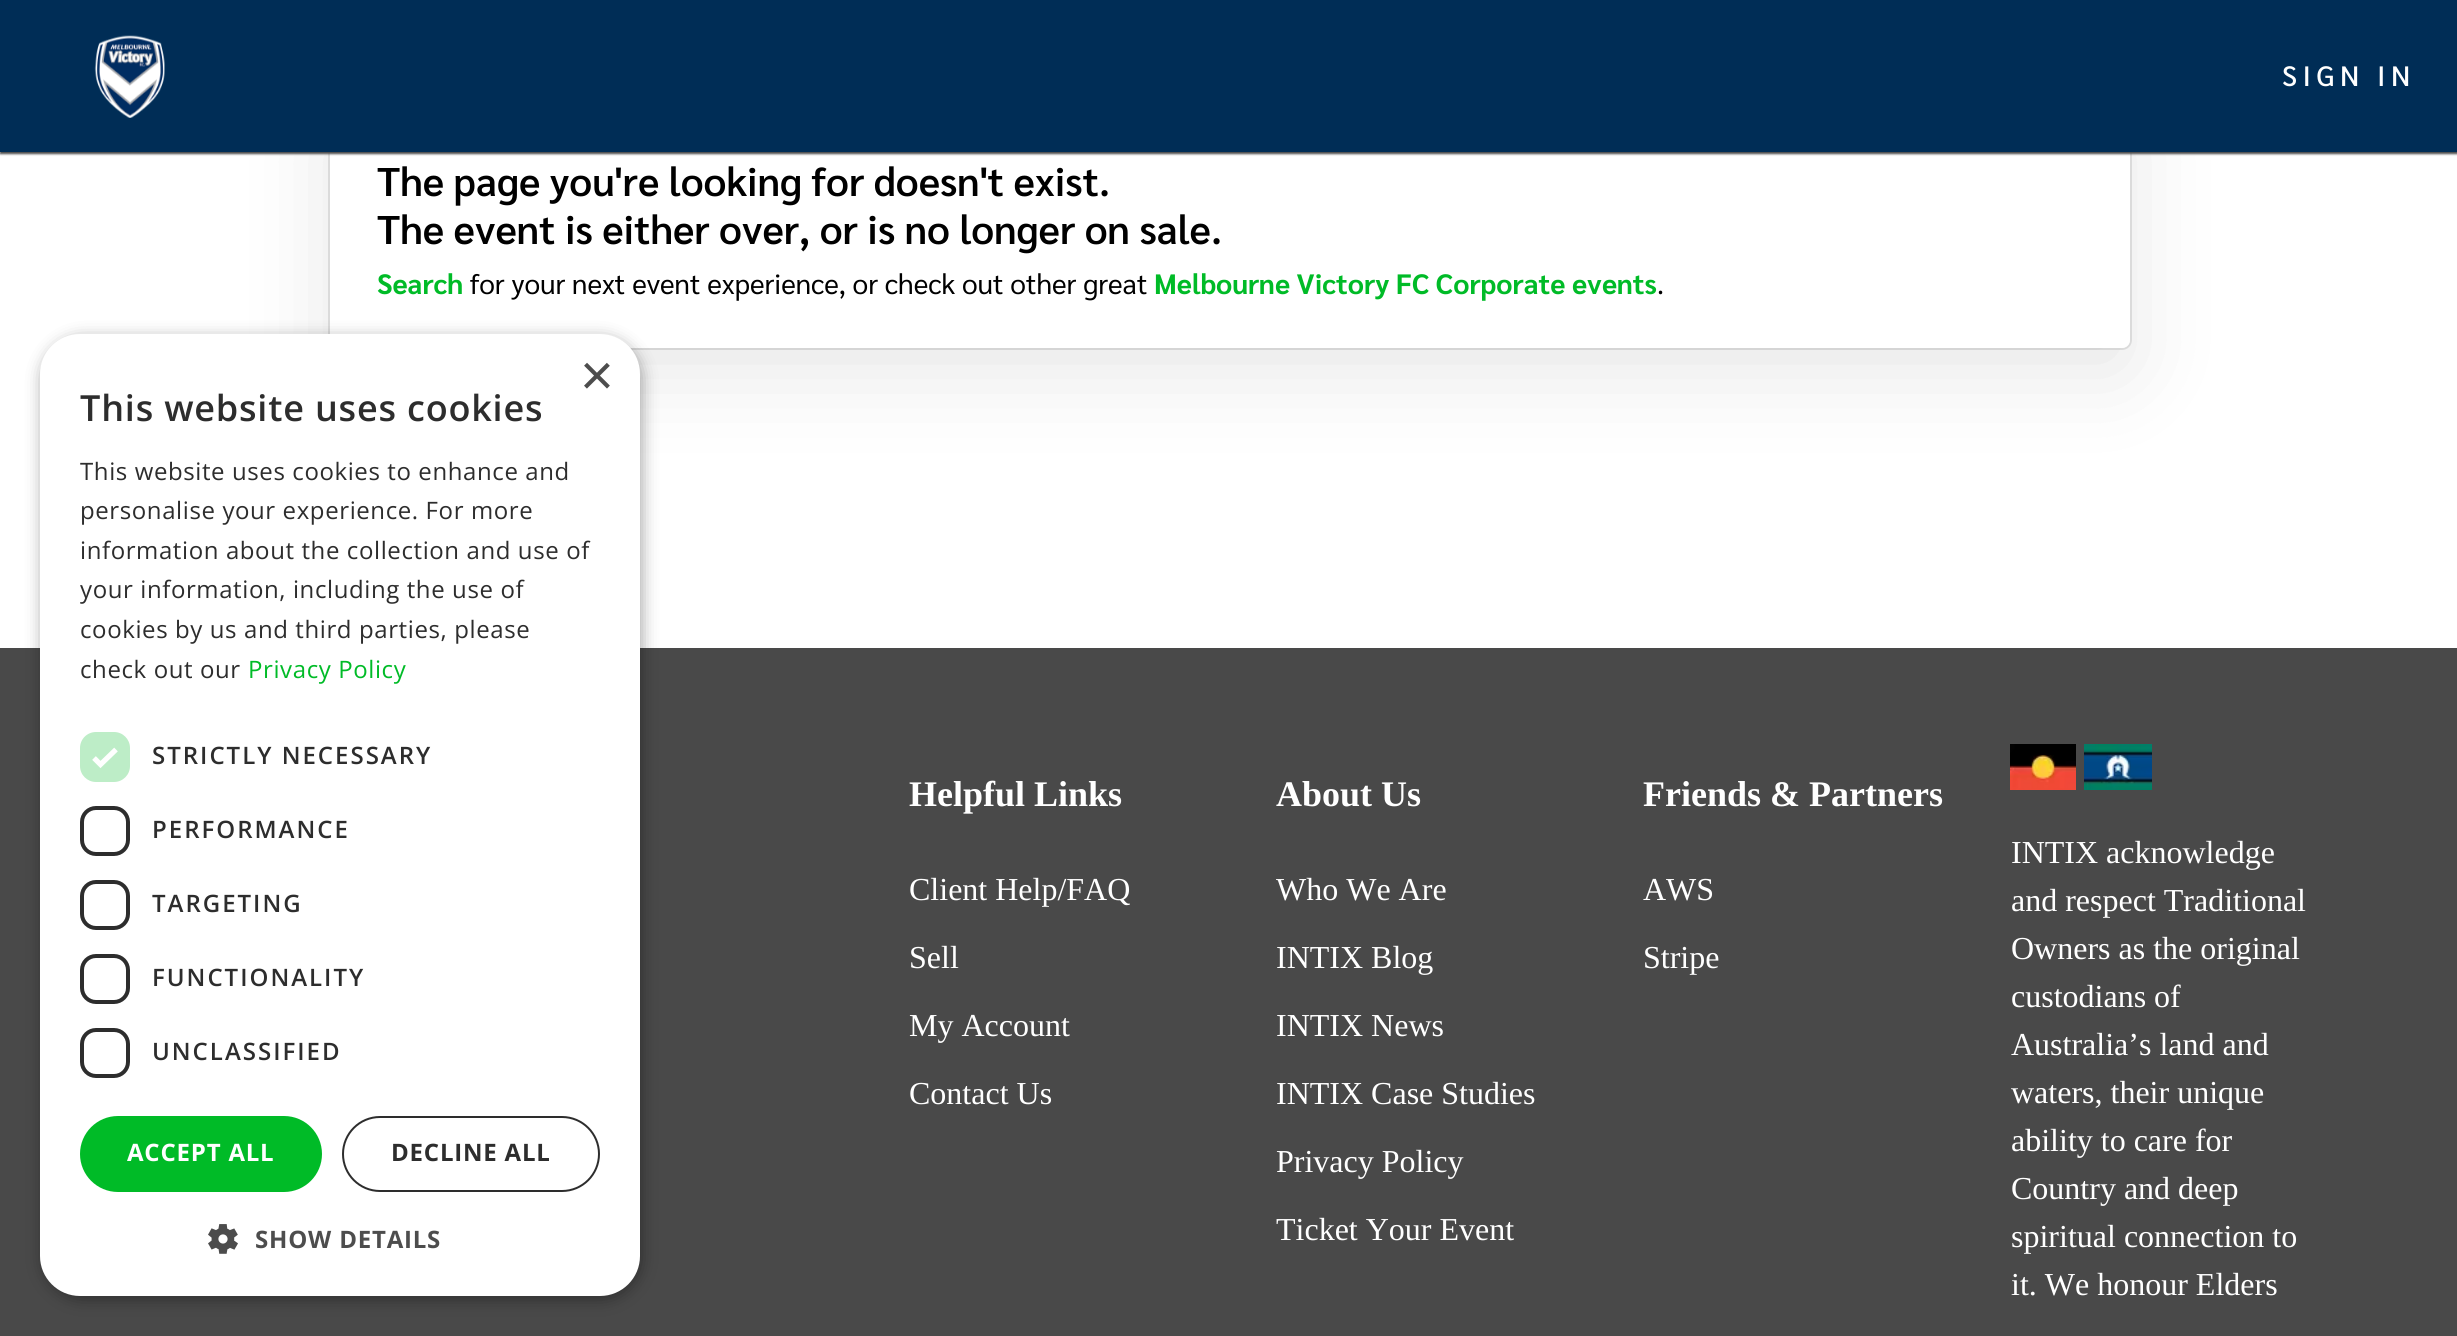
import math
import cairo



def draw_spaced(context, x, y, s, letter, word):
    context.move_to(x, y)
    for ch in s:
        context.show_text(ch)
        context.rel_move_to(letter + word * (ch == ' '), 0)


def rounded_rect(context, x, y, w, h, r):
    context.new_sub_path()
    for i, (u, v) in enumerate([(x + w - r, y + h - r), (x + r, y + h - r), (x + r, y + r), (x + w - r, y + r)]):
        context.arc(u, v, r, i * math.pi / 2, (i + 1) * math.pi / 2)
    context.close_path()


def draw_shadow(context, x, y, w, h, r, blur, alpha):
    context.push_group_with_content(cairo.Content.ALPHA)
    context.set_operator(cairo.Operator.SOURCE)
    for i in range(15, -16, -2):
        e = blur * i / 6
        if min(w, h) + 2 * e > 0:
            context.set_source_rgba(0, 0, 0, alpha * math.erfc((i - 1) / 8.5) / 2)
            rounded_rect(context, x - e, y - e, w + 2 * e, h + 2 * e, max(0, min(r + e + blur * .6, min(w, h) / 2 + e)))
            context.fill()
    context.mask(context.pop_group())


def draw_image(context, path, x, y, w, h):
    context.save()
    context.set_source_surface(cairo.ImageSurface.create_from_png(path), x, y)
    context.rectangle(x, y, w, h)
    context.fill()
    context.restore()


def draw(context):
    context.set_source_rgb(1, 1, 1)
    context.paint()
    rounded_rect(context, 329, 107, 1802, 242, 9)
    context.set_source_rgb(230 / 255, 230 / 255, 230 / 255)
    context.stroke()
    context.set_source_rgb(0, 0, 0)
    draw_shadow(context, 330, 132, 1800, 240, 8, 44, 0.1)
    context.set_source_rgb(1, 1, 1)
    rounded_rect(context, 330, 108, 1800, 240, 8)
    context.fill()
    context.set_source_rgb(73 / 255, 73 / 255, 73 / 255)
    context.rectangle(0, 648, 2457, 688)
    context.fill()
    context.set_source_rgb(0, 0, 0)
    draw_shadow(context, 42, 338, 600, 962, 40, 8, 0.35)
    context.set_source_rgb(1, 1, 1)
    rounded_rect(context, 40, 334, 600, 962, 40)
    context.fill()
    context.set_source_rgb(189 / 255, 237 / 255, 199 / 255)
    rounded_rect(context, 80, 732, 50, 50, 16)
    context.fill()
    context.new_path()
    context.move_to(94, 758)
    context.line_to(100.5, 764.5)
    context.line_to(116, 749.5)
    context.set_source_rgb(1, 1, 1)
    context.set_line_width(5.2)
    context.stroke()
    rounded_rect(context, 82, 808, 46, 46, 14)
    context.set_source_rgb(45 / 255, 45 / 255, 45 / 255)
    context.set_line_width(4)
    context.stroke()
    rounded_rect(context, 82, 882, 46, 46, 14)
    context.stroke()
    rounded_rect(context, 82, 956, 46, 46, 14)
    context.stroke()
    rounded_rect(context, 82, 1030, 46, 46, 14)
    context.stroke()
    context.set_source_rgb(0, 187 / 255, 39 / 255)
    rounded_rect(context, 80, 1116, 242, 76, 38)
    context.fill()
    rounded_rect(context, 343, 1117, 256, 74, 37)
    context.set_source_rgb(45 / 255, 45 / 255, 45 / 255)
    context.set_line_width(2)
    context.stroke()
    draw_image(context, "images/1.png", 208, 1224, 30, 30)
    context.set_source_rgb(73 / 255, 73 / 255, 73 / 255)
    draw_shadow(context, 0, 2, 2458, 152, 0, 1, 1)
    context.set_source_rgb(0, 45 / 255, 86 / 255)
    context.rectangle(0, 0, 2457, 152)
    context.fill()
    draw_image(context, "images/2.png", 94, 35, 71, 83)
    draw_image(context, "images/3.png", 2010, 744, 66, 46)
    draw_image(context, "images/4.png", 2084, 744, 68, 46)
    context.select_font_face("Liberation Sans")
    context.set_font_size(58)
    context.set_source_rgb(77 / 255, 77 / 255, 77 / 255)
    context.move_to(580, 395)
    context.show_text("×")
    context.select_font_face("Open Sans SemiBold")
    context.set_font_size(36)
    context.set_source_rgb(45 / 255, 45 / 255, 45 / 255)
    draw_spaced(context, 80, 421, "This website uses cookies", 0.8, 0)
    context.select_font_face("Open Sans")
    context.set_font_size(24)
    draw_spaced(context, 80, 480, "This website uses cookies to enhance and", 0.6, 0)
    draw_spaced(context, 80, 519, "personalise your experience. For more", 0.6, 0)
    draw_spaced(context, 80, 559, "information about the collection and use of", 0.6, 0)
    draw_spaced(context, 80, 598, "your information, including the use of", 0.6, 0)
    draw_spaced(context, 80, 638, "cookies by us and third parties, please", 0.6, 0)
    draw_spaced(context, 80, 678, "check out our", 0.6, 0)
    context.set_source_rgb(0, 187 / 255, 39 / 255)
    draw_spaced(context, 248, 678, "Privacy Policy", 0.6, 0)
    context.select_font_face("Open Sans SemiBold")
    context.set_source_rgb(45 / 255, 45 / 255, 45 / 255)
    draw_spaced(context, 152, 764, "STRICTLY NECESSARY", 2, 0)
    draw_spaced(context, 152, 838, "PERFORMANCE", 2, 0)
    draw_spaced(context, 152, 912, "TARGETING", 2, 0)
    draw_spaced(context, 152, 986, "FUNCTIONALITY", 2, 0)
    draw_spaced(context, 152, 1060, "UNCLASSIFIED", 2, 0)
    context.select_font_face("Open Sans", cairo.FontSlant.NORMAL, cairo.FontWeight.BOLD)
    context.set_source_rgb(1, 1, 1)
    draw_spaced(context, 127, 1161, "ACCEPT ALL", 0.8, 0)
    context.set_source_rgb(45 / 255, 45 / 255, 45 / 255)
    draw_spaced(context, 391, 1161, "DECLINE ALL", 0.8, 0)
    context.set_source_rgb(77 / 255, 77 / 255, 77 / 255)
    draw_spaced(context, 255, 1248, "SHOW DETAILS", 0.8, 0)
    context.select_font_face("Sarabun Medium")
    context.set_font_size(28)
    context.set_source_rgb(1, 1, 1)
    draw_spaced(context, 2282, 86, "SIGN IN", 5.5, 0)
    context.select_font_face("Sarabun SemiBold")
    context.set_font_size(40)
    context.set_source_rgb(0, 0, 0)
    context.move_to(377, 196)
    context.show_text("The page you're looking for doesn't exist.")
    context.move_to(377, 244)
    context.show_text("The event is either over, or is no longer on sale.")
    context.select_font_face("Sarabun", cairo.FontSlant.NORMAL, cairo.FontWeight.BOLD)
    context.set_font_size(28)
    context.set_source_rgb(0, 187 / 255, 39 / 255)
    context.move_to(377, 294)
    context.show_text("Search")
    context.select_font_face("Sarabun")
    context.set_source_rgb(0, 0, 0)
    context.move_to(470, 294)
    context.show_text("for your next event experience, or check out other great")
    context.select_font_face("Sarabun", cairo.FontSlant.NORMAL, cairo.FontWeight.BOLD)
    context.set_source_rgb(0, 187 / 255, 39 / 255)
    context.move_to(1154, 294)
    context.show_text("Melbourne Victory FC Corporate events")
    context.select_font_face("Sarabun")
    context.set_source_rgb(0, 0, 0)
    context.move_to(1657, 294)
    context.show_text(".")
    context.select_font_face("Liberation Serif", cairo.FontSlant.NORMAL, cairo.FontWeight.BOLD)
    context.set_font_size(36)
    context.set_source_rgb(1, 1, 1)
    context.move_to(909, 806)
    context.show_text("Helpful Links")
    context.select_font_face("Liberation Serif")
    context.set_font_size(32)
    context.move_to(909, 900)
    context.show_text("Client Help/FAQ")
    context.move_to(909, 968)
    context.show_text("Sell")
    context.move_to(909, 1036)
    context.show_text("My Account")
    context.move_to(909, 1104)
    context.show_text("Contact Us")
    context.select_font_face("Liberation Serif", cairo.FontSlant.NORMAL, cairo.FontWeight.BOLD)
    context.set_font_size(36)
    context.move_to(1276, 806)
    context.show_text("About Us")
    context.select_font_face("Liberation Serif")
    context.set_font_size(32)
    context.move_to(1276, 900)
    context.show_text("Who We Are")
    context.move_to(1276, 968)
    context.show_text("INTIX Blog")
    context.move_to(1276, 1036)
    context.show_text("INTIX News")
    context.move_to(1276, 1104)
    context.show_text("INTIX Case Studies")
    context.move_to(1276, 1172)
    context.show_text("Privacy Policy")
    context.move_to(1276, 1240)
    context.show_text("Ticket Your Event")
    context.select_font_face("Liberation Serif", cairo.FontSlant.NORMAL, cairo.FontWeight.BOLD)
    context.set_font_size(36)
    context.move_to(1643, 806)
    context.show_text("Friends & Partners")
    context.select_font_face("Liberation Serif")
    context.set_font_size(32)
    context.move_to(1643, 900)
    context.show_text("AWS")
    context.move_to(1643, 968)
    context.show_text("Stripe")
    context.move_to(2011, 863)
    context.show_text("INTIX acknowledge")
    context.move_to(2011, 911)
    context.show_text("and respect Traditional")
    context.move_to(2011, 959)
    context.show_text("Owners as the original")
    context.move_to(2011, 1007)
    context.show_text("custodians of")
    context.move_to(2011, 1055)
    context.show_text("Australia’s land and")
    context.move_to(2011, 1103)
    context.show_text("waters, their unique")
    context.move_to(2011, 1151)
    context.show_text("ability to care for")
    context.move_to(2011, 1199)
    context.show_text("Country and deep")
    context.move_to(2011, 1247)
    context.show_text("spiritual connection to")
    context.move_to(2011, 1295)
    context.show_text("it. We honour Elders")


surface = cairo.ImageSurface(cairo.Format.RGB24, 2457, 1336)
context = cairo.Context(surface)
options = cairo.FontOptions()
options.set_hint_metrics(cairo.HintMetrics.OFF)
options.set_hint_style(cairo.HintStyle.NONE)
context.set_font_options(options)
context.set_miter_limit(4)
draw(context)
surface.write_to_png("out.png")
